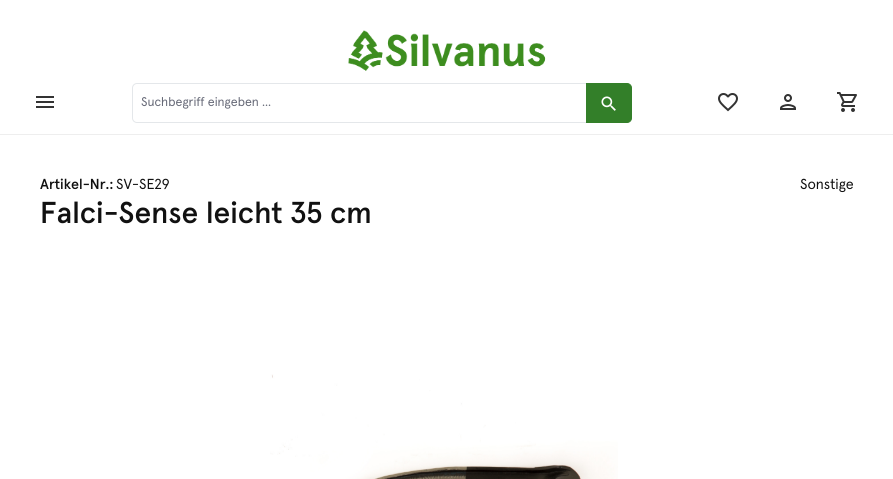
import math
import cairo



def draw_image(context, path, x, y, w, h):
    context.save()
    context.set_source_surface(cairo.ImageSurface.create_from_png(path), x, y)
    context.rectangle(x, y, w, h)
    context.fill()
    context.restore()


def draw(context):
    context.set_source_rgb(1, 1, 1)
    context.paint()
    draw_image(context, "images/1.png", 348, 30, 198, 41)
    draw_image(context, "images/2.png", 36, 96, 18, 12)
    context.new_path()
    context.move_to(137, 83.5)
    context.line_to(586.5, 83.5)
    context.line_to(586.5, 122.5)
    context.line_to(137, 122.5)
    context.curve_to(134.5, 122.5, 132.5, 120.5, 132.5, 118)
    context.line_to(132.5, 88)
    context.curve_to(132.5, 85.5, 134.5, 83.5, 137, 83.5)
    context.close_path()
    context.set_source_rgb(228 / 255, 231 / 255, 234 / 255)
    context.set_line_width(1)
    context.stroke()
    context.set_source_rgb(51 / 255, 127 / 255, 41 / 255)
    context.new_path()
    context.move_to(586.5, 83.5)
    context.line_to(627, 83.5)
    context.curve_to(629.5, 83.5, 631.5, 85.5, 631.5, 88)
    context.line_to(631.5, 118)
    context.curve_to(631.5, 120.5, 629.5, 122.5, 627, 122.5)
    context.line_to(586.5, 122.5)
    context.close_path()
    context.fill_preserve()
    context.stroke()
    draw_image(context, "images/3.png", 601, 96, 15, 15)
    draw_image(context, "images/4.png", 718, 93, 20, 19)
    draw_image(context, "images/5.png", 780, 94, 16, 16)
    draw_image(context, "images/6.png", 837, 92, 20, 20)
    context.set_source_rgb(238 / 255, 238 / 255, 238 / 255)
    context.rectangle(0, 134, 893, 1)
    context.fill()
    draw_image(context, "images/7.png", 270, 374, 348, 105)
    context.select_font_face("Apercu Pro")
    context.set_font_size(12.6)
    context.set_source_rgb(102 / 255, 105 / 255, 119 / 255)
    context.move_to(141, 106)
    context.show_text("Suchbegriff eingeben ...")
    context.select_font_face("Apercu Pro Medium")
    context.set_font_size(14.5)
    context.set_source_rgb(17 / 255, 17 / 255, 17 / 255)
    context.move_to(40, 189)
    context.show_text("Artikel-Nr.:")
    context.select_font_face("Apercu Pro")
    context.move_to(116, 189)
    context.show_text("SV-SE29")
    context.select_font_face("Apercu Pro Medium")
    context.set_font_size(30.25)
    context.move_to(40, 223)
    context.show_text("Falci-Sense leicht 35 cm")
    context.select_font_face("Apercu Pro")
    context.set_font_size(14.5)
    context.move_to(800, 189)
    context.show_text("Sonstige")


surface = cairo.ImageSurface(cairo.Format.RGB24, 893, 479)
context = cairo.Context(surface)
options = cairo.FontOptions()
options.set_hint_metrics(cairo.HintMetrics.OFF)
options.set_hint_style(cairo.HintStyle.NONE)
context.set_font_options(options)
context.set_miter_limit(4)
draw(context)
surface.write_to_png("out.png")
